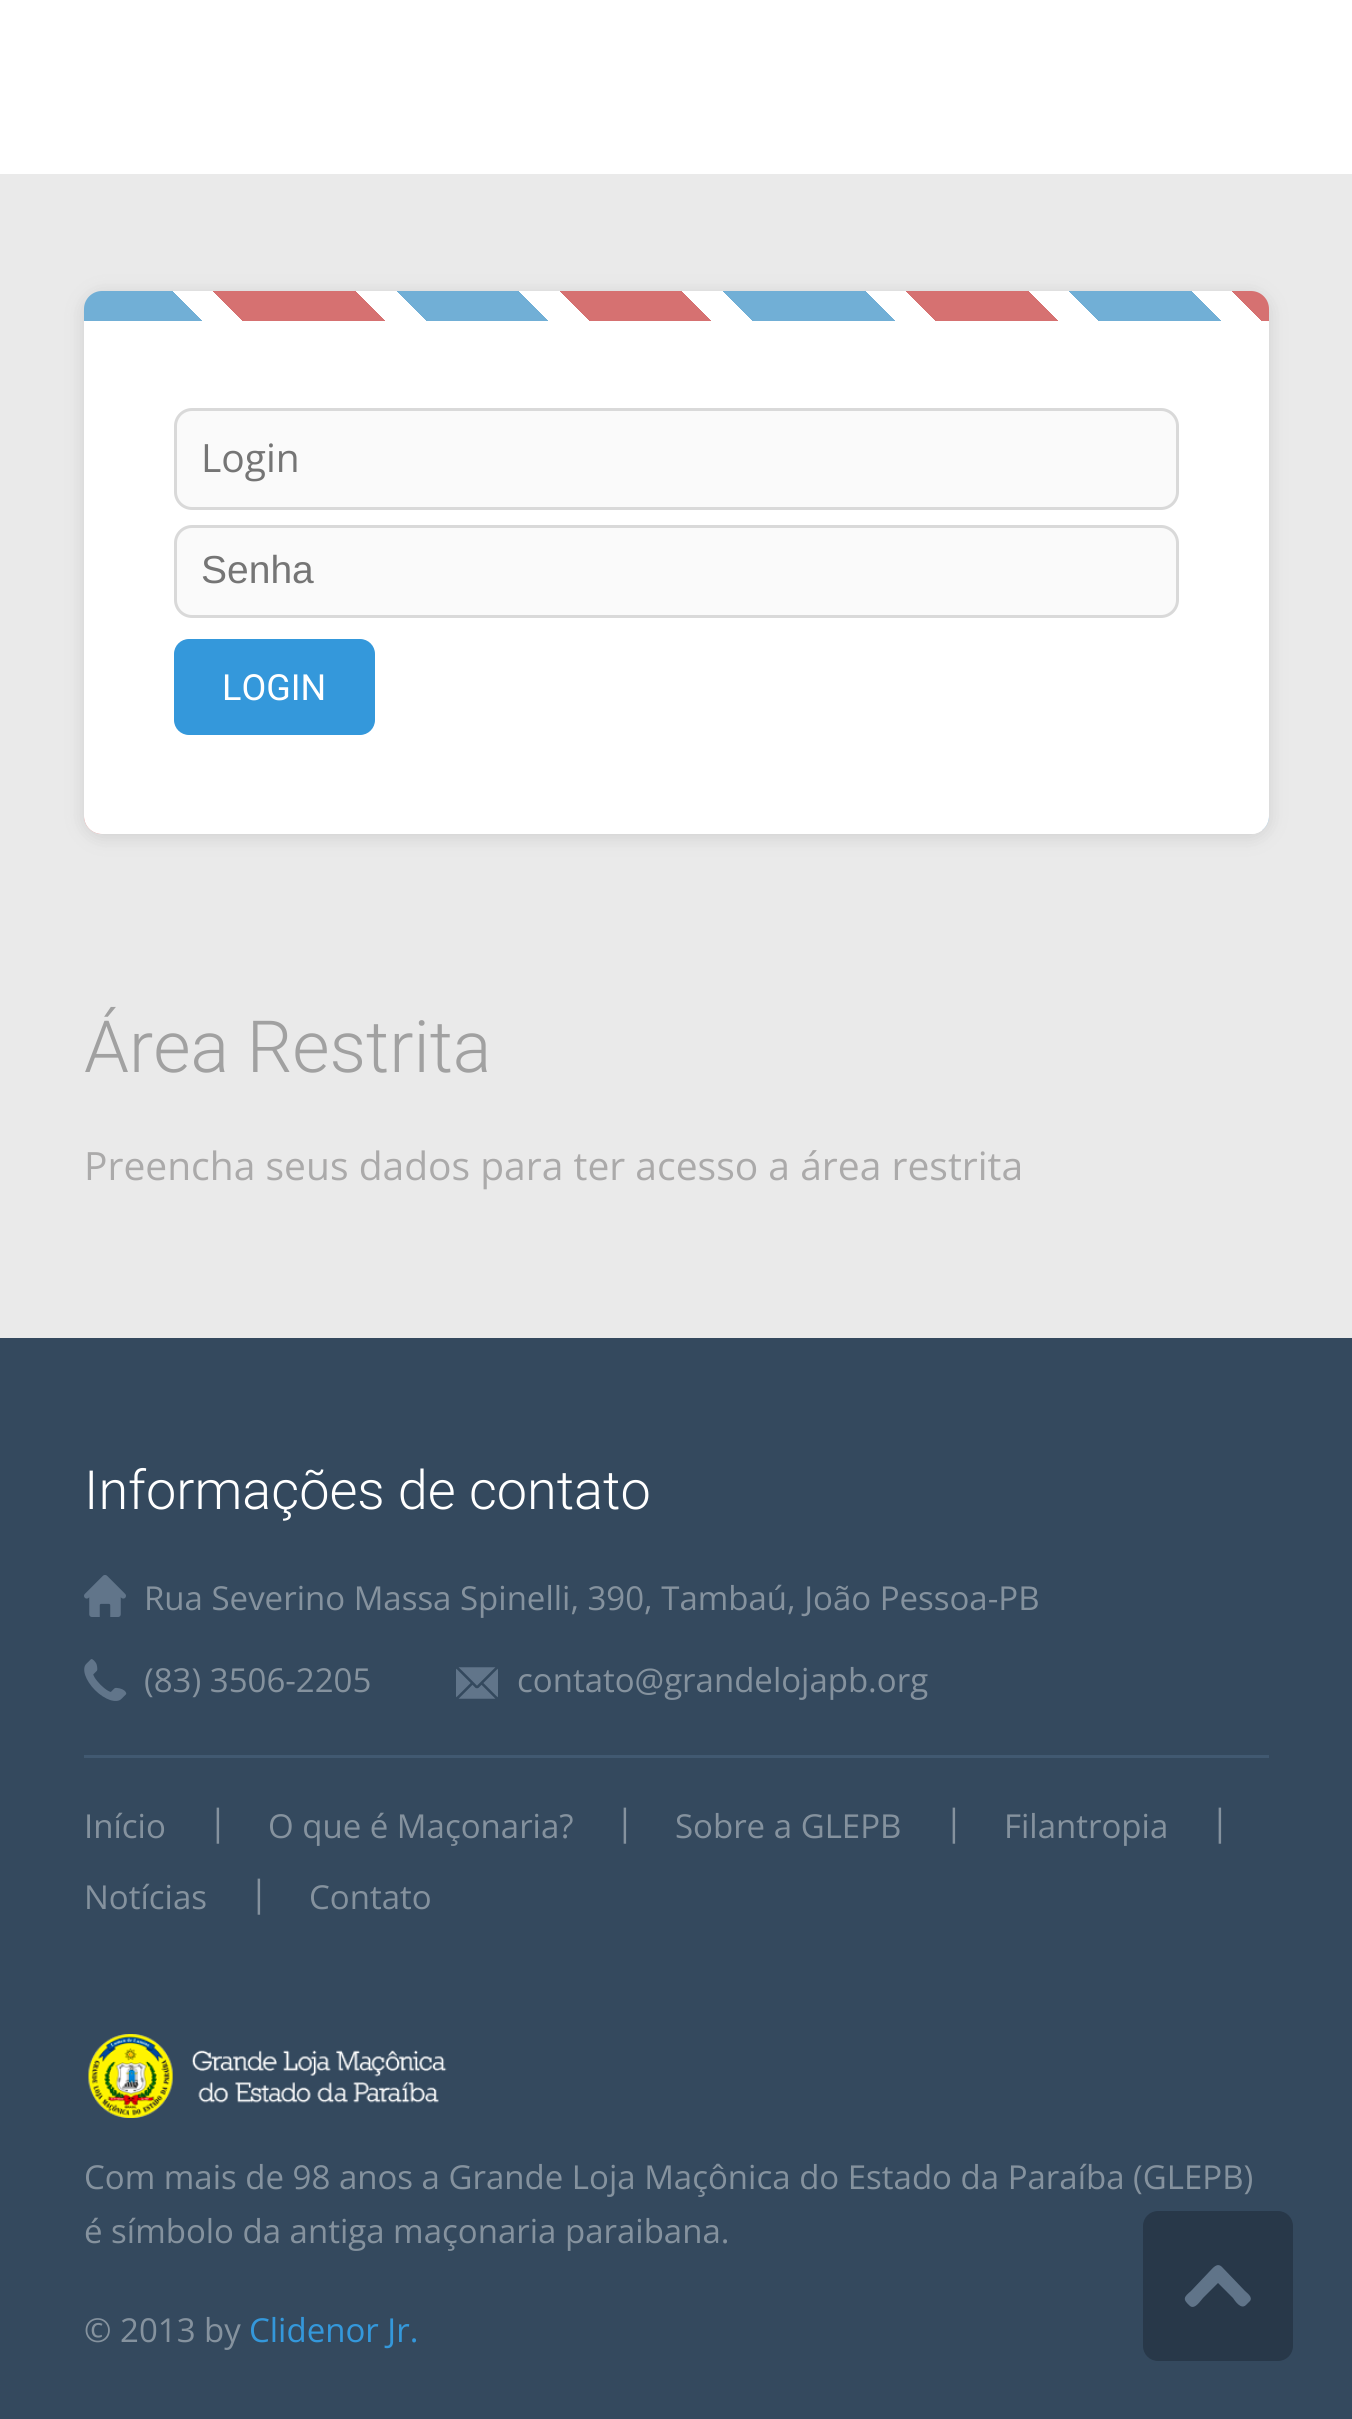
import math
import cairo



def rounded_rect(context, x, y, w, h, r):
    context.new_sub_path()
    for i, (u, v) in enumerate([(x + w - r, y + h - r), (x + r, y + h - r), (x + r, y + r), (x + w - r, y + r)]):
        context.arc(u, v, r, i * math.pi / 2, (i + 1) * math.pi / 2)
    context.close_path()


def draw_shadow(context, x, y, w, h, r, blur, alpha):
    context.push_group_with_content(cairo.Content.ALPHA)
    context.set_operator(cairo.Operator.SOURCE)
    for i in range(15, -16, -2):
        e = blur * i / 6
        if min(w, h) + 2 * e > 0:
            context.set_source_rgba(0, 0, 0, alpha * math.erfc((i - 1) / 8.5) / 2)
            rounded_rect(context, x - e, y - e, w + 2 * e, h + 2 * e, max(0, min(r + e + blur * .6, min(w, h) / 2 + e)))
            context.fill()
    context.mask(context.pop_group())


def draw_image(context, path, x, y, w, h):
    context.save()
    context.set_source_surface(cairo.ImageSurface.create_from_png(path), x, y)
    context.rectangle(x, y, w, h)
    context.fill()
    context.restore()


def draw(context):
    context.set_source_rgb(1, 1, 1)
    context.paint()
    context.set_source_rgb(234 / 255, 234 / 255, 234 / 255)
    context.rectangle(0, 174, 1352, 1164)
    context.fill()
    context.set_source_rgb(207 / 255, 207 / 255, 207 / 255)
    draw_shadow(context, 84, 294, 1185, 543, 18, 9, 1)
    gradient = cairo.LinearGradient(245, 995, 1263, -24)
    gradient.add_color_stop_rgba(0, 214 / 255, 113 / 255, 113 / 255, 1)
    gradient.add_color_stop_rgba(0.06, 214 / 255, 113 / 255, 113 / 255, 1)
    gradient.add_color_stop_rgba(0.06, 1, 1, 1, 1)
    gradient.add_color_stop_rgba(0.08, 1, 1, 1, 1)
    gradient.add_color_stop_rgba(0.08, 113 / 255, 175 / 255, 214 / 255, 1)
    gradient.add_color_stop_rgba(0.15, 113 / 255, 175 / 255, 214 / 255, 1)
    gradient.add_color_stop_rgba(0.15, 1, 1, 1, 1)
    gradient.add_color_stop_rgba(0.17, 1, 1, 1, 1)
    gradient.add_color_stop_rgba(0.17, 214 / 255, 113 / 255, 113 / 255, 1)
    gradient.add_color_stop_rgba(0.23, 214 / 255, 113 / 255, 113 / 255, 1)
    gradient.add_color_stop_rgba(0.23, 1, 1, 1, 1)
    gradient.add_color_stop_rgba(0.25, 1, 1, 1, 1)
    gradient.add_color_stop_rgba(0.25, 113 / 255, 175 / 255, 214 / 255, 1)
    gradient.add_color_stop_rgba(0.31, 113 / 255, 175 / 255, 214 / 255, 1)
    gradient.add_color_stop_rgba(0.31, 1, 1, 1, 1)
    gradient.add_color_stop_rgba(0.33, 1, 1, 1, 1)
    gradient.add_color_stop_rgba(0.33, 214 / 255, 113 / 255, 113 / 255, 1)
    gradient.add_color_stop_rgba(0.4, 214 / 255, 113 / 255, 113 / 255, 1)
    gradient.add_color_stop_rgba(0.4, 1, 1, 1, 1)
    gradient.add_color_stop_rgba(0.42, 1, 1, 1, 1)
    gradient.add_color_stop_rgba(0.42, 113 / 255, 175 / 255, 214 / 255, 1)
    gradient.add_color_stop_rgba(0.48, 113 / 255, 175 / 255, 214 / 255, 1)
    gradient.add_color_stop_rgba(0.48, 1, 1, 1, 1)
    gradient.add_color_stop_rgba(0.5, 1, 1, 1, 1)
    gradient.add_color_stop_rgba(0.5, 214 / 255, 113 / 255, 113 / 255, 1)
    gradient.add_color_stop_rgba(0.56, 214 / 255, 113 / 255, 113 / 255, 1)
    gradient.add_color_stop_rgba(0.56, 1, 1, 1, 1)
    gradient.add_color_stop_rgba(0.58, 1, 1, 1, 1)
    gradient.add_color_stop_rgba(0.58, 113 / 255, 175 / 255, 214 / 255, 1)
    gradient.add_color_stop_rgba(0.65, 113 / 255, 175 / 255, 214 / 255, 1)
    gradient.add_color_stop_rgba(0.65, 1, 1, 1, 1)
    gradient.add_color_stop_rgba(0.67, 1, 1, 1, 1)
    gradient.add_color_stop_rgba(0.67, 214 / 255, 113 / 255, 113 / 255, 1)
    gradient.add_color_stop_rgba(0.73, 214 / 255, 113 / 255, 113 / 255, 1)
    gradient.add_color_stop_rgba(0.73, 1, 1, 1, 1)
    gradient.add_color_stop_rgba(0.75, 1, 1, 1, 1)
    gradient.add_color_stop_rgba(0.75, 113 / 255, 175 / 255, 214 / 255, 1)
    gradient.add_color_stop_rgba(0.81, 113 / 255, 175 / 255, 214 / 255, 1)
    gradient.add_color_stop_rgba(0.81, 1, 1, 1, 1)
    gradient.add_color_stop_rgba(0.83, 1, 1, 1, 1)
    gradient.add_color_stop_rgba(0.83, 214 / 255, 113 / 255, 113 / 255, 1)
    gradient.add_color_stop_rgba(0.9, 214 / 255, 113 / 255, 113 / 255, 1)
    gradient.add_color_stop_rgba(0.9, 1, 1, 1, 1)
    gradient.add_color_stop_rgba(0.92, 1, 1, 1, 1)
    gradient.add_color_stop_rgba(0.92, 113 / 255, 175 / 255, 214 / 255, 1)
    gradient.add_color_stop_rgba(0.98, 113 / 255, 175 / 255, 214 / 255, 1)
    gradient.add_color_stop_rgba(0.98, 1, 1, 1, 1)
    gradient.add_color_stop_rgba(1, 1, 1, 1, 1)
    context.set_source(gradient)
    rounded_rect(context, 84, 291, 1185, 543, 18)
    context.fill()
    context.set_source_rgb(1, 1, 1)
    context.new_path()
    context.move_to(84, 321)
    context.line_to(1269, 321)
    context.line_to(1269, 816)
    context.curve_to(1269, 826, 1261, 834, 1251, 834)
    context.line_to(102, 834)
    context.curve_to(92, 834, 84, 826, 84, 816)
    context.close_path()
    context.fill()
    context.set_source_rgb(250 / 255, 250 / 255, 250 / 255)
    rounded_rect(context, 175.5, 409.5, 1002, 99, 16.5)
    context.fill_preserve()
    context.set_source_rgb(217 / 255, 217 / 255, 217 / 255)
    context.set_line_width(3)
    context.stroke()
    context.set_source_rgb(250 / 255, 250 / 255, 250 / 255)
    rounded_rect(context, 175.5, 526.5, 1002, 90, 16.5)
    context.fill_preserve()
    context.set_source_rgb(217 / 255, 217 / 255, 217 / 255)
    context.stroke()
    context.set_source_rgb(52 / 255, 152 / 255, 219 / 255)
    rounded_rect(context, 174, 639, 201, 96, 15)
    context.fill()
    context.set_source_rgb(52 / 255, 73 / 255, 94 / 255)
    context.rectangle(0, 1338, 1352, 1081)
    context.fill()
    context.set_source_rgb(65 / 255, 89 / 255, 113 / 255)
    context.rectangle(84, 1755, 1185, 3)
    context.fill()
    draw_image(context, "images/1.png", 84, 1575, 42, 42)
    draw_image(context, "images/2.png", 84, 1659, 43, 42)
    draw_image(context, "images/3.png", 456, 1667, 42, 32)
    draw_image(context, "images/4.png", 88, 2034, 359, 84)
    context.set_source_rgb(40 / 255, 56 / 255, 73 / 255)
    rounded_rect(context, 1143, 2211, 150, 150, 15)
    context.fill()
    context.set_source_rgb(96 / 255, 116 / 255, 137 / 255)
    context.new_path()
    context.move_to(1222, 2267)
    context.line_to(1245, 2291)
    context.curve_to(1247, 2293, 1253, 2297, 1250, 2301)
    context.line_to(1246, 2305)
    context.curve_to(1241, 2310, 1235, 2301, 1233, 2298)
    context.line_to(1218, 2283)
    context.line_to(1203, 2298)
    context.curve_to(1201, 2300, 1195, 2310, 1190, 2306)
    context.curve_to(1182, 2299, 1184, 2297, 1191, 2291)
    context.line_to(1209, 2272)
    context.curve_to(1213, 2268, 1217, 2262, 1222, 2267)
    context.close_path()
    context.fill()
    context.select_font_face("Open Sans")
    context.set_font_size(39)
    context.set_source_rgb(117 / 255, 117 / 255, 117 / 255)
    context.move_to(201, 472)
    context.show_text("Login")
    context.select_font_face("Liberation Sans")
    context.move_to(201, 583)
    context.show_text("Senha")
    context.select_font_face("Roboto")
    context.set_font_size(36)
    context.set_source_rgb(1, 1, 1)
    context.move_to(222, 700)
    context.show_text("LOGIN")
    context.select_font_face("Roboto Light")
    context.set_font_size(72)
    context.set_source_rgb(161 / 255, 161 / 255, 161 / 255)
    context.move_to(84, 1072)
    context.show_text("Área Restrita")
    context.select_font_face("Open Sans")
    context.set_font_size(39)
    context.set_source_rgb(171 / 255, 170 / 255, 170 / 255)
    context.move_to(84, 1180)
    context.show_text("Preencha seus dados para ter acesso a área restrita")
    context.select_font_face("Roboto Light")
    context.set_font_size(54)
    context.set_source_rgb(1, 1, 1)
    context.move_to(84, 1509)
    context.show_text("Informações de contato")
    context.select_font_face("Open Sans")
    context.set_font_size(33)
    context.set_source_rgb(133 / 255, 146 / 255, 158 / 255)
    context.move_to(144, 1610)
    context.show_text("Rua Severino Massa Spinelli, 390, Tambaú, João Pessoa-PB")
    context.move_to(144, 1692)
    context.show_text("(83) 3506-2205")
    context.move_to(517, 1692)
    context.show_text("contato@grandelojapb.org")
    context.move_to(84, 1838)
    context.show_text("Início")
    context.set_font_size(36)
    context.move_to(208, 1835)
    context.show_text("|")
    context.set_font_size(33)
    context.move_to(268, 1838)
    context.show_text("O que é Maçonaria?")
    context.set_font_size(36)
    context.move_to(615, 1835)
    context.show_text("|")
    context.set_font_size(33)
    context.move_to(675, 1838)
    context.show_text("Sobre a GLEPB")
    context.set_font_size(36)
    context.move_to(944, 1835)
    context.show_text("|")
    context.set_font_size(33)
    context.move_to(1004, 1838)
    context.show_text("Filantropia")
    context.set_font_size(36)
    context.move_to(1210, 1835)
    context.show_text("|")
    context.set_font_size(33)
    context.move_to(84, 1909)
    context.show_text("Notícias")
    context.set_font_size(36)
    context.move_to(249, 1906)
    context.show_text("|")
    context.set_font_size(33)
    context.move_to(309, 1909)
    context.show_text("Contato")
    context.move_to(84, 2189)
    context.show_text("Com mais de 98 anos a Grande Loja Maçônica do Estado da Paraíba (GLEPB)")
    context.move_to(84, 2243)
    context.show_text("é símbolo da antiga maçonaria paraibana.")
    context.move_to(84, 2342)
    context.show_text("© 2013 by")
    context.set_source_rgb(52 / 255, 152 / 255, 219 / 255)
    context.move_to(249, 2342)
    context.show_text("Clidenor Jr.")


surface = cairo.ImageSurface(cairo.Format.RGB24, 1352, 2419)
context = cairo.Context(surface)
options = cairo.FontOptions()
options.set_hint_metrics(cairo.HintMetrics.OFF)
options.set_hint_style(cairo.HintStyle.NONE)
context.set_font_options(options)
context.set_miter_limit(4)
draw(context)
surface.write_to_png("out.png")
